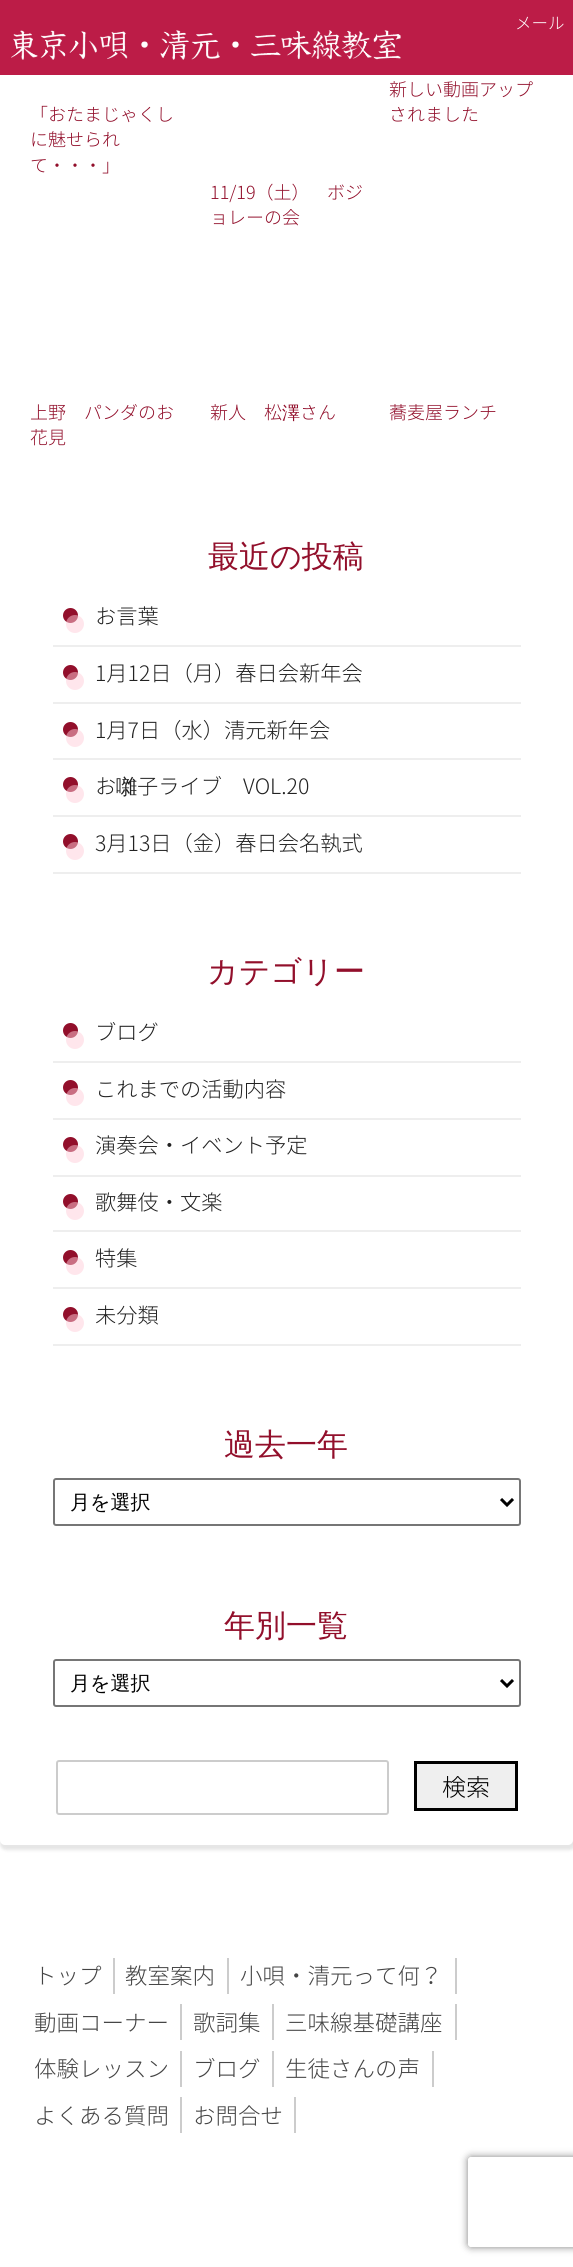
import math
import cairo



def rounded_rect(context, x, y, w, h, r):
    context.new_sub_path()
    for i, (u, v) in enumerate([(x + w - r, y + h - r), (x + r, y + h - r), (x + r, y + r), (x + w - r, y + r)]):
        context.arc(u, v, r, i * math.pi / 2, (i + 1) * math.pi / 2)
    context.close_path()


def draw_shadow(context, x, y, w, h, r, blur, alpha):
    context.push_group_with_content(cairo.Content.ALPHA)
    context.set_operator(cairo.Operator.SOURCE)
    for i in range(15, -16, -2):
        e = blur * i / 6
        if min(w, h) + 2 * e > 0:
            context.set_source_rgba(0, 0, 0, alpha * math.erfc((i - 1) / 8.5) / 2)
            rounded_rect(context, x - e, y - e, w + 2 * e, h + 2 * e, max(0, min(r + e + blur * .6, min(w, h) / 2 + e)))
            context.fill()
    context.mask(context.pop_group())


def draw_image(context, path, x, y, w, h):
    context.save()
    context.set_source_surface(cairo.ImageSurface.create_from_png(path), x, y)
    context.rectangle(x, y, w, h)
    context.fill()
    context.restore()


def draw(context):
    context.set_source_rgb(1, 1, 1)
    context.paint()
    context.set_source_rgb(0, 0, 0)
    draw_shadow(context, 0, -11, 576, 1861, 6, 1.5, 0.1)
    context.set_source_rgb(1, 1, 1)
    rounded_rect(context, 0, -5, 573, 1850, 5)
    context.fill()
    context.set_source_rgb(188 / 255, 28 / 255, 71 / 255)
    context.rectangle(0, 0, 573, 75)
    context.fill()
    draw_image(context, "images/1.png", 11, 30, 390, 30)
    context.set_source_rgb(238 / 255, 238 / 255, 238 / 255)
    context.rectangle(53, 645, 468, 2)
    context.fill()
    context.set_source_rgb(146 / 255, 15 / 255, 43 / 255)
    context.arc(70.5, 615.5, 7.5, 0, 2 * math.pi)
    context.fill()
    context.set_source_rgba(1, 207 / 255, 218 / 255, 0.5)
    context.arc(75, 624, 9, 0, 2 * math.pi)
    context.fill()
    context.set_source_rgb(238 / 255, 238 / 255, 238 / 255)
    context.rectangle(53, 702, 468, 2)
    context.fill()
    context.set_source_rgb(146 / 255, 15 / 255, 43 / 255)
    context.arc(70.5, 672.5, 7.5, 0, 2 * math.pi)
    context.fill()
    context.set_source_rgba(1, 207 / 255, 218 / 255, 0.5)
    context.arc(75, 681, 9, 0, 2 * math.pi)
    context.fill()
    context.set_source_rgb(238 / 255, 238 / 255, 238 / 255)
    context.rectangle(53, 758, 468, 2)
    context.fill()
    context.set_source_rgb(146 / 255, 15 / 255, 43 / 255)
    context.arc(70.5, 729.5, 7.5, 0, 2 * math.pi)
    context.fill()
    context.set_source_rgba(1, 207 / 255, 218 / 255, 0.5)
    context.arc(75, 738, 9, 0, 2 * math.pi)
    context.fill()
    context.set_source_rgb(238 / 255, 238 / 255, 238 / 255)
    context.rectangle(53, 815, 468, 2)
    context.fill()
    context.set_source_rgb(146 / 255, 15 / 255, 43 / 255)
    context.arc(70.5, 784.5, 7.5, 0, 2 * math.pi)
    context.fill()
    context.set_source_rgba(1, 207 / 255, 218 / 255, 0.5)
    context.arc(75, 794, 9, 0, 2 * math.pi)
    context.fill()
    context.set_source_rgb(238 / 255, 238 / 255, 238 / 255)
    context.rectangle(53, 872, 468, 2)
    context.fill()
    context.set_source_rgb(146 / 255, 15 / 255, 43 / 255)
    context.arc(70.5, 841.5, 7.5, 0, 2 * math.pi)
    context.fill()
    context.set_source_rgba(1, 207 / 255, 218 / 255, 0.5)
    context.arc(75, 851, 9, 0, 2 * math.pi)
    context.fill()
    context.set_source_rgb(238 / 255, 238 / 255, 238 / 255)
    context.rectangle(53, 1061, 468, 2)
    context.fill()
    context.set_source_rgb(146 / 255, 15 / 255, 43 / 255)
    context.arc(70.5, 1030.5, 7.5, 0, 2 * math.pi)
    context.fill()
    context.set_source_rgba(1, 207 / 255, 218 / 255, 0.5)
    context.arc(75, 1040, 9, 0, 2 * math.pi)
    context.fill()
    context.set_source_rgb(238 / 255, 238 / 255, 238 / 255)
    context.rectangle(53, 1118, 468, 2)
    context.fill()
    context.set_source_rgb(146 / 255, 15 / 255, 43 / 255)
    context.arc(70.5, 1087.5, 7.5, 0, 2 * math.pi)
    context.fill()
    context.set_source_rgba(1, 207 / 255, 218 / 255, 0.5)
    context.arc(75, 1097, 9, 0, 2 * math.pi)
    context.fill()
    context.set_source_rgb(238 / 255, 238 / 255, 238 / 255)
    context.rectangle(53, 1175, 468, 2)
    context.fill()
    context.set_source_rgb(146 / 255, 15 / 255, 43 / 255)
    context.arc(70.5, 1144.5, 7.5, 0, 2 * math.pi)
    context.fill()
    context.set_source_rgba(1, 207 / 255, 218 / 255, 0.5)
    context.arc(75, 1154, 9, 0, 2 * math.pi)
    context.fill()
    context.set_source_rgb(238 / 255, 238 / 255, 238 / 255)
    context.rectangle(53, 1230, 468, 2)
    context.fill()
    context.set_source_rgb(146 / 255, 15 / 255, 43 / 255)
    context.arc(70.5, 1201.5, 7.5, 0, 2 * math.pi)
    context.fill()
    context.set_source_rgba(1, 207 / 255, 218 / 255, 0.5)
    context.arc(75, 1211, 9, 0, 2 * math.pi)
    context.fill()
    context.set_source_rgb(238 / 255, 238 / 255, 238 / 255)
    context.rectangle(53, 1287, 468, 2)
    context.fill()
    context.set_source_rgb(146 / 255, 15 / 255, 43 / 255)
    context.arc(70.5, 1257.5, 7.5, 0, 2 * math.pi)
    context.fill()
    context.set_source_rgba(1, 207 / 255, 218 / 255, 0.5)
    context.arc(75, 1266, 9, 0, 2 * math.pi)
    context.fill()
    context.set_source_rgb(238 / 255, 238 / 255, 238 / 255)
    context.rectangle(53, 1344, 468, 2)
    context.fill()
    context.set_source_rgb(146 / 255, 15 / 255, 43 / 255)
    context.arc(70.5, 1314.5, 7.5, 0, 2 * math.pi)
    context.fill()
    context.set_source_rgba(1, 207 / 255, 218 / 255, 0.5)
    context.arc(75, 1323, 9, 0, 2 * math.pi)
    context.fill()
    rounded_rect(context, 54, 1479, 466, 46, 2)
    context.set_source_rgb(118 / 255, 118 / 255, 118 / 255)
    context.stroke()
    context.new_path()
    context.move_to(501, 1499)
    context.line_to(507, 1505)
    context.line_to(513, 1499)
    context.set_source_rgb(0, 0, 0)
    context.set_line_width(3)
    context.stroke()
    rounded_rect(context, 54, 1660, 466, 46, 2)
    context.set_source_rgb(118 / 255, 118 / 255, 118 / 255)
    context.set_line_width(2)
    context.stroke()
    context.new_path()
    context.move_to(501, 1680)
    context.line_to(507, 1686)
    context.line_to(513, 1680)
    context.set_source_rgb(0, 0, 0)
    context.set_line_width(3)
    context.stroke()
    rounded_rect(context, 57, 1761, 331, 53, 2)
    context.set_source_rgb(204 / 255, 204 / 255, 204 / 255)
    context.set_line_width(2)
    context.stroke()
    context.set_source_rgb(239 / 255, 239 / 255, 239 / 255)
    context.rectangle(415.5, 1762.5, 101, 47)
    context.fill_preserve()
    context.set_source_rgb(0, 0, 0)
    context.set_line_width(3)
    context.stroke()
    context.set_source_rgb(204 / 255, 204 / 255, 204 / 255)
    context.rectangle(113, 1958, 2, 36)
    context.fill()
    context.rectangle(227, 1958, 2, 36)
    context.fill()
    context.rectangle(455, 1958, 2, 36)
    context.fill()
    context.rectangle(180, 2004, 2, 36)
    context.fill()
    context.rectangle(272, 2004, 2, 36)
    context.fill()
    context.rectangle(455, 2004, 2, 36)
    context.fill()
    context.rectangle(180, 2051, 2, 36)
    context.fill()
    context.rectangle(272, 2051, 2, 36)
    context.fill()
    context.rectangle(432, 2051, 2, 36)
    context.fill()
    context.rectangle(180, 2097, 2, 36)
    context.fill()
    context.rectangle(294, 2097, 2, 36)
    context.fill()
    context.save()
    context.set_fill_rule(cairo.FillRule.EVEN_ODD)
    context.new_path()
    context.move_to(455, 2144)
    context.line_to(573, 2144)
    context.line_to(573, 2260)
    context.line_to(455, 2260)
    context.close_path()
    context.move_to(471, 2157)
    context.line_to(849, 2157)
    context.curve_to(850.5, 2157, 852, 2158.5, 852, 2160)
    context.line_to(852, 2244)
    context.curve_to(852, 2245.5, 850.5, 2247, 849, 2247)
    context.line_to(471, 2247)
    context.curve_to(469.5, 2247, 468, 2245.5, 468, 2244)
    context.line_to(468, 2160)
    context.curve_to(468, 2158.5, 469.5, 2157, 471, 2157)
    context.close_path()
    context.clip()
    context.set_source_rgb(128 / 255, 128 / 255, 128 / 255)
    draw_shadow(context, 468, 2157, 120, 90, 3, 4, 1)
    context.restore()
    context.select_font_face("Noto Sans CJK JP Light")
    context.set_font_size(16.5)
    context.set_source_rgb(1, 1, 1)
    context.move_to(515, 29)
    context.show_text("メール")
    context.set_font_size(18)
    context.set_source_rgb(146 / 255, 15 / 255, 43 / 255)
    context.move_to(30, 121)
    context.show_text("「おたまじゃくし")
    context.move_to(30, 146)
    context.show_text("に魅せられ")
    context.move_to(30, 172)
    context.show_text("て・・・」")
    context.move_to(389, 96)
    context.show_text("新しい動画アップ")
    context.move_to(389, 121)
    context.show_text("されました")
    context.move_to(210, 199)
    context.show_text("11/19（土）")
    context.move_to(327, 199)
    context.show_text("ボジ")
    context.move_to(210, 224)
    context.show_text("ョレーの会")
    context.move_to(30, 419)
    context.show_text("上野")
    context.move_to(84, 419)
    context.show_text("パンダのお")
    context.move_to(30, 444)
    context.show_text("花見")
    context.move_to(210, 419)
    context.show_text("新人")
    context.move_to(264, 419)
    context.show_text("松")
    context.select_font_face("WenQuanYi Zen Hei Medium")
    context.move_to(282, 419)
    context.show_text("澤")
    context.select_font_face("Noto Sans CJK JP Light")
    context.move_to(300, 419)
    context.show_text("さん")
    context.move_to(389, 419)
    context.show_text("蕎麦屋ランチ")
    context.select_font_face("WenQuanYi Zen Hei Medium")
    context.set_font_size(31)
    context.move_to(208, 567)
    context.show_text("最近の投稿")
    context.select_font_face("Noto Sans CJK JP Light")
    context.set_font_size(21.25)
    context.set_source_rgb(34 / 255, 34 / 255, 34 / 255)
    context.move_to(95, 624)
    context.show_text("お言葉")
    context.move_to(95, 681)
    context.show_text("1月12日（月）春日会新年会")
    context.move_to(95, 738)
    context.show_text("1月7日（水）清元新年会")
    context.move_to(95, 794)
    context.show_text("お")
    context.select_font_face("WenQuanYi Zen Hei Medium")
    context.move_to(116, 794)
    context.show_text("囃")
    context.select_font_face("Noto Sans CJK JP Light")
    context.move_to(137, 794)
    context.show_text("子ライブ")
    context.move_to(243, 794)
    context.show_text("VOL.20")
    context.move_to(95, 851)
    context.show_text("3月13日（金）春日会名執式")
    context.select_font_face("WenQuanYi Zen Hei Medium")
    context.set_font_size(31)
    context.set_source_rgb(146 / 255, 15 / 255, 43 / 255)
    context.move_to(207, 982)
    context.show_text("カテゴリー")
    context.select_font_face("Noto Sans CJK JP Light")
    context.set_font_size(21.25)
    context.set_source_rgb(34 / 255, 34 / 255, 34 / 255)
    context.move_to(95, 1040)
    context.show_text("ブログ")
    context.move_to(95, 1097)
    context.show_text("これまでの活動内容")
    context.move_to(95, 1153)
    context.show_text("演奏会・イベント予定")
    context.move_to(95, 1210)
    context.show_text("歌舞伎・文楽")
    context.move_to(95, 1266)
    context.show_text("特集")
    context.move_to(95, 1323)
    context.show_text("未分類")
    context.select_font_face("WenQuanYi Zen Hei Medium")
    context.set_font_size(31)
    context.set_source_rgb(146 / 255, 15 / 255, 43 / 255)
    context.move_to(224, 1455)
    context.show_text("過去一年")
    context.set_font_size(20)
    context.set_source_rgb(0, 0, 0)
    context.move_to(70, 1509)
    context.show_text("月を選択")
    context.set_font_size(31)
    context.set_source_rgb(146 / 255, 15 / 255, 43 / 255)
    context.move_to(224, 1636)
    context.show_text("年別一覧")
    context.set_font_size(20)
    context.set_source_rgb(0, 0, 0)
    context.move_to(70, 1690)
    context.show_text("月を選択")
    context.select_font_face("Noto Sans CJK JP Light")
    context.set_font_size(24)
    context.move_to(442, 1796)
    context.show_text("検索")
    context.set_font_size(22.5)
    context.set_source_rgb(68 / 255, 68 / 255, 68 / 255)
    context.move_to(34, 1984)
    context.show_text("トップ")
    context.move_to(125, 1984)
    context.show_text("教室案内")
    context.move_to(240, 1984)
    context.show_text("小唄・清元って何？")
    context.move_to(34, 2031)
    context.show_text("動画コーナー")
    context.move_to(193, 2031)
    context.show_text("歌詞集")
    context.move_to(285, 2031)
    context.show_text("三味線基礎講座")
    context.move_to(34, 2077)
    context.show_text("体験レッスン")
    context.move_to(193, 2077)
    context.show_text("ブログ")
    context.move_to(285, 2077)
    context.show_text("生徒さんの声")
    context.move_to(34, 2124)
    context.show_text("よくある質問")
    context.move_to(193, 2124)
    context.show_text("お問合せ")


surface = cairo.ImageSurface(cairo.Format.RGB24, 573, 2267)
context = cairo.Context(surface)
options = cairo.FontOptions()
options.set_hint_metrics(cairo.HintMetrics.OFF)
options.set_hint_style(cairo.HintStyle.NONE)
context.set_font_options(options)
context.set_miter_limit(4)
draw(context)
surface.write_to_png("out.png")
